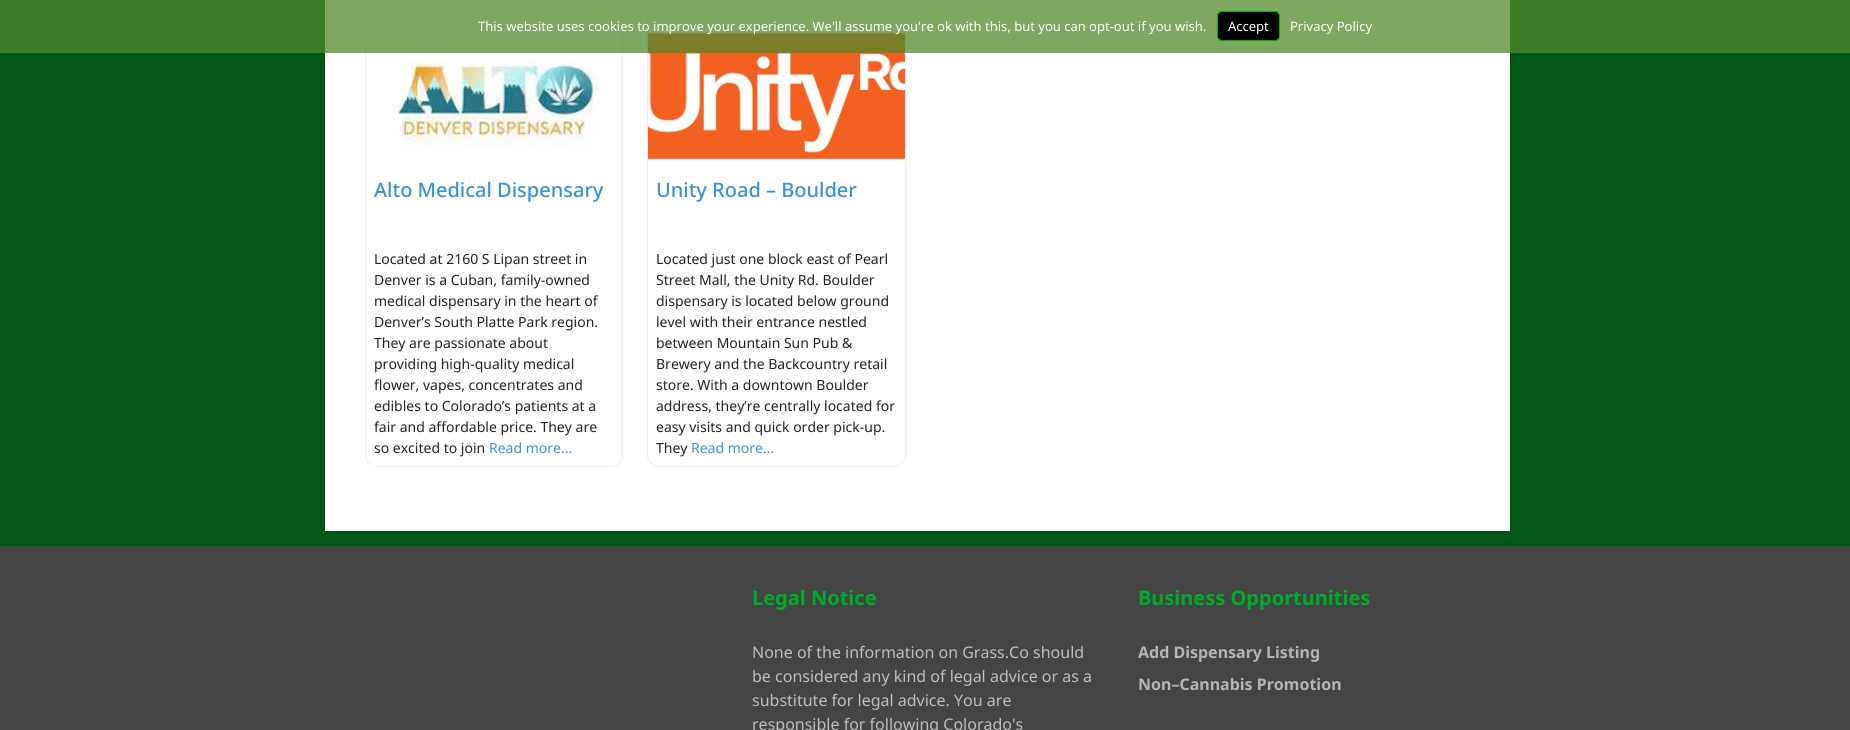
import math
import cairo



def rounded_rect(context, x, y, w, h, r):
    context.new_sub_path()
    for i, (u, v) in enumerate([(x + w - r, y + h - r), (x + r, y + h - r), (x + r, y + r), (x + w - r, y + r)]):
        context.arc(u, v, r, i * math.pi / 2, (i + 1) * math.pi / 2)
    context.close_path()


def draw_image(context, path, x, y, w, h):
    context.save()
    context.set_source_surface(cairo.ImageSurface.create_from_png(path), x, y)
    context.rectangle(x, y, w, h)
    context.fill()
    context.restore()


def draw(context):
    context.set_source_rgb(0, 86 / 255, 23 / 255)
    context.paint()
    context.set_source_rgb(1, 1, 1)
    context.rectangle(325, 0, 1185, 531)
    context.fill()
    rounded_rect(context, 365.5, 3.5, 257, 463, 11.5)
    context.set_source_rgb(239 / 255, 236 / 255, 243 / 255)
    context.set_line_width(1)
    context.stroke()
    rounded_rect(context, 647.5, 3.5, 258, 463, 11.5)
    context.stroke()
    draw_image(context, "images/2.png", 648, 32, 257, 128)
    context.set_source_rgba(82 / 255, 137 / 255, 42 / 255, 0.74)
    context.rectangle(0, 0, 1850, 53)
    context.fill()
    context.set_source_rgb(0, 0, 0)
    rounded_rect(context, 1217.5, 11.5, 62, 29, 4.5)
    context.fill_preserve()
    context.set_source_rgb(2 / 255, 170 / 255, 0)
    context.stroke()
    draw_image(context, "images/1.png", 393, 58, 206, 92)
    context.set_source_rgb(68 / 255, 68 / 255, 68 / 255)
    context.rectangle(0, 546, 1850, 184)
    context.fill()
    context.select_font_face("Noto Sans")
    context.set_font_size(13)
    context.set_source_rgb(1, 1, 1)
    context.move_to(478, 31)
    context.show_text("This website uses cookies to improve your experience. We'll assume you're ok with this, but you can opt-out if you wish.")
    context.move_to(1228, 31)
    context.show_text("Accept")
    context.move_to(1290, 31)
    context.show_text("Privacy Policy")
    context.select_font_face("Noto Sans Medium")
    context.set_font_size(20)
    context.set_source_rgb(57 / 255, 147 / 255, 213 / 255)
    context.move_to(374, 197)
    context.show_text("Alto Medical Dispensary")
    context.select_font_face("Noto Sans")
    context.set_font_size(14)
    context.set_source_rgb(34 / 255, 34 / 255, 34 / 255)
    context.move_to(374, 264)
    context.show_text("Located at 2160 S Lipan street in")
    context.move_to(374, 285)
    context.show_text("Denver is a Cuban, family-owned")
    context.move_to(374, 306)
    context.show_text("medical dispensary in the heart of")
    context.move_to(374, 327)
    context.show_text("Denver’s South Platte Park region.")
    context.move_to(374, 348)
    context.show_text("They are passionate about")
    context.move_to(374, 369)
    context.show_text("providing high-quality medical")
    context.move_to(374, 390)
    context.show_text("flower, vapes, concentrates and")
    context.move_to(374, 411)
    context.show_text("edibles to Colorado’s patients at a")
    context.move_to(374, 432)
    context.show_text("fair and affordable price. They are")
    context.move_to(374, 453)
    context.show_text("so excited to join")
    context.set_source_rgb(57 / 255, 147 / 255, 213 / 255)
    context.move_to(489, 453)
    context.show_text("Read more...")
    context.select_font_face("Noto Sans Medium")
    context.set_font_size(20)
    context.move_to(656, 197)
    context.show_text("Unity Road – Boulder")
    context.select_font_face("Noto Sans")
    context.set_font_size(14)
    context.set_source_rgb(34 / 255, 34 / 255, 34 / 255)
    context.move_to(656, 264)
    context.show_text("Located just one block east of Pearl")
    context.move_to(656, 285)
    context.show_text("Street Mall, the Unity Rd. Boulder")
    context.move_to(656, 306)
    context.show_text("dispensary is located below ground")
    context.move_to(656, 327)
    context.show_text("level with their entrance nestled")
    context.move_to(656, 348)
    context.show_text("between Mountain Sun Pub &")
    context.move_to(656, 369)
    context.show_text("Brewery and the Backcountry retail")
    context.move_to(656, 390)
    context.show_text("store. With a downtown Boulder")
    context.move_to(656, 411)
    context.show_text("address, they’re centrally located for")
    context.move_to(656, 432)
    context.show_text("easy visits and quick order pick-up.")
    context.move_to(656, 453)
    context.show_text("They")
    context.set_source_rgb(57 / 255, 147 / 255, 213 / 255)
    context.move_to(691, 453)
    context.show_text("Read more...")
    context.select_font_face("Noto Sans", cairo.FontSlant.NORMAL, cairo.FontWeight.BOLD)
    context.set_font_size(20)
    context.set_source_rgb(0, 173 / 255, 40 / 255)
    context.move_to(752, 605)
    context.show_text("Legal Notice")
    context.select_font_face("Noto Sans")
    context.set_font_size(16)
    context.set_source_rgb(191 / 255, 191 / 255, 191 / 255)
    context.move_to(752, 658)
    context.show_text("None of the information on Grass.Co should")
    context.move_to(752, 682)
    context.show_text("be considered any kind of legal advice or as a")
    context.move_to(752, 706)
    context.show_text("substitute for legal advice. You are")
    context.move_to(752, 730)
    context.show_text("responsible for following Colorado's")
    context.select_font_face("Noto Sans", cairo.FontSlant.NORMAL, cairo.FontWeight.BOLD)
    context.set_font_size(20)
    context.set_source_rgb(0, 173 / 255, 40 / 255)
    context.move_to(1138, 605)
    context.show_text("Business Opportunities")
    context.set_font_size(16)
    context.set_source_rgb(181 / 255, 181 / 255, 181 / 255)
    context.move_to(1138, 658)
    context.show_text("Add Dispensary Listing")
    context.move_to(1138, 690)
    context.show_text("Non–Cannabis Promotion")


surface = cairo.ImageSurface(cairo.Format.RGB24, 1850, 730)
context = cairo.Context(surface)
options = cairo.FontOptions()
options.set_hint_metrics(cairo.HintMetrics.OFF)
options.set_hint_style(cairo.HintStyle.NONE)
context.set_font_options(options)
context.set_miter_limit(4)
draw(context)
surface.write_to_png("out.png")
